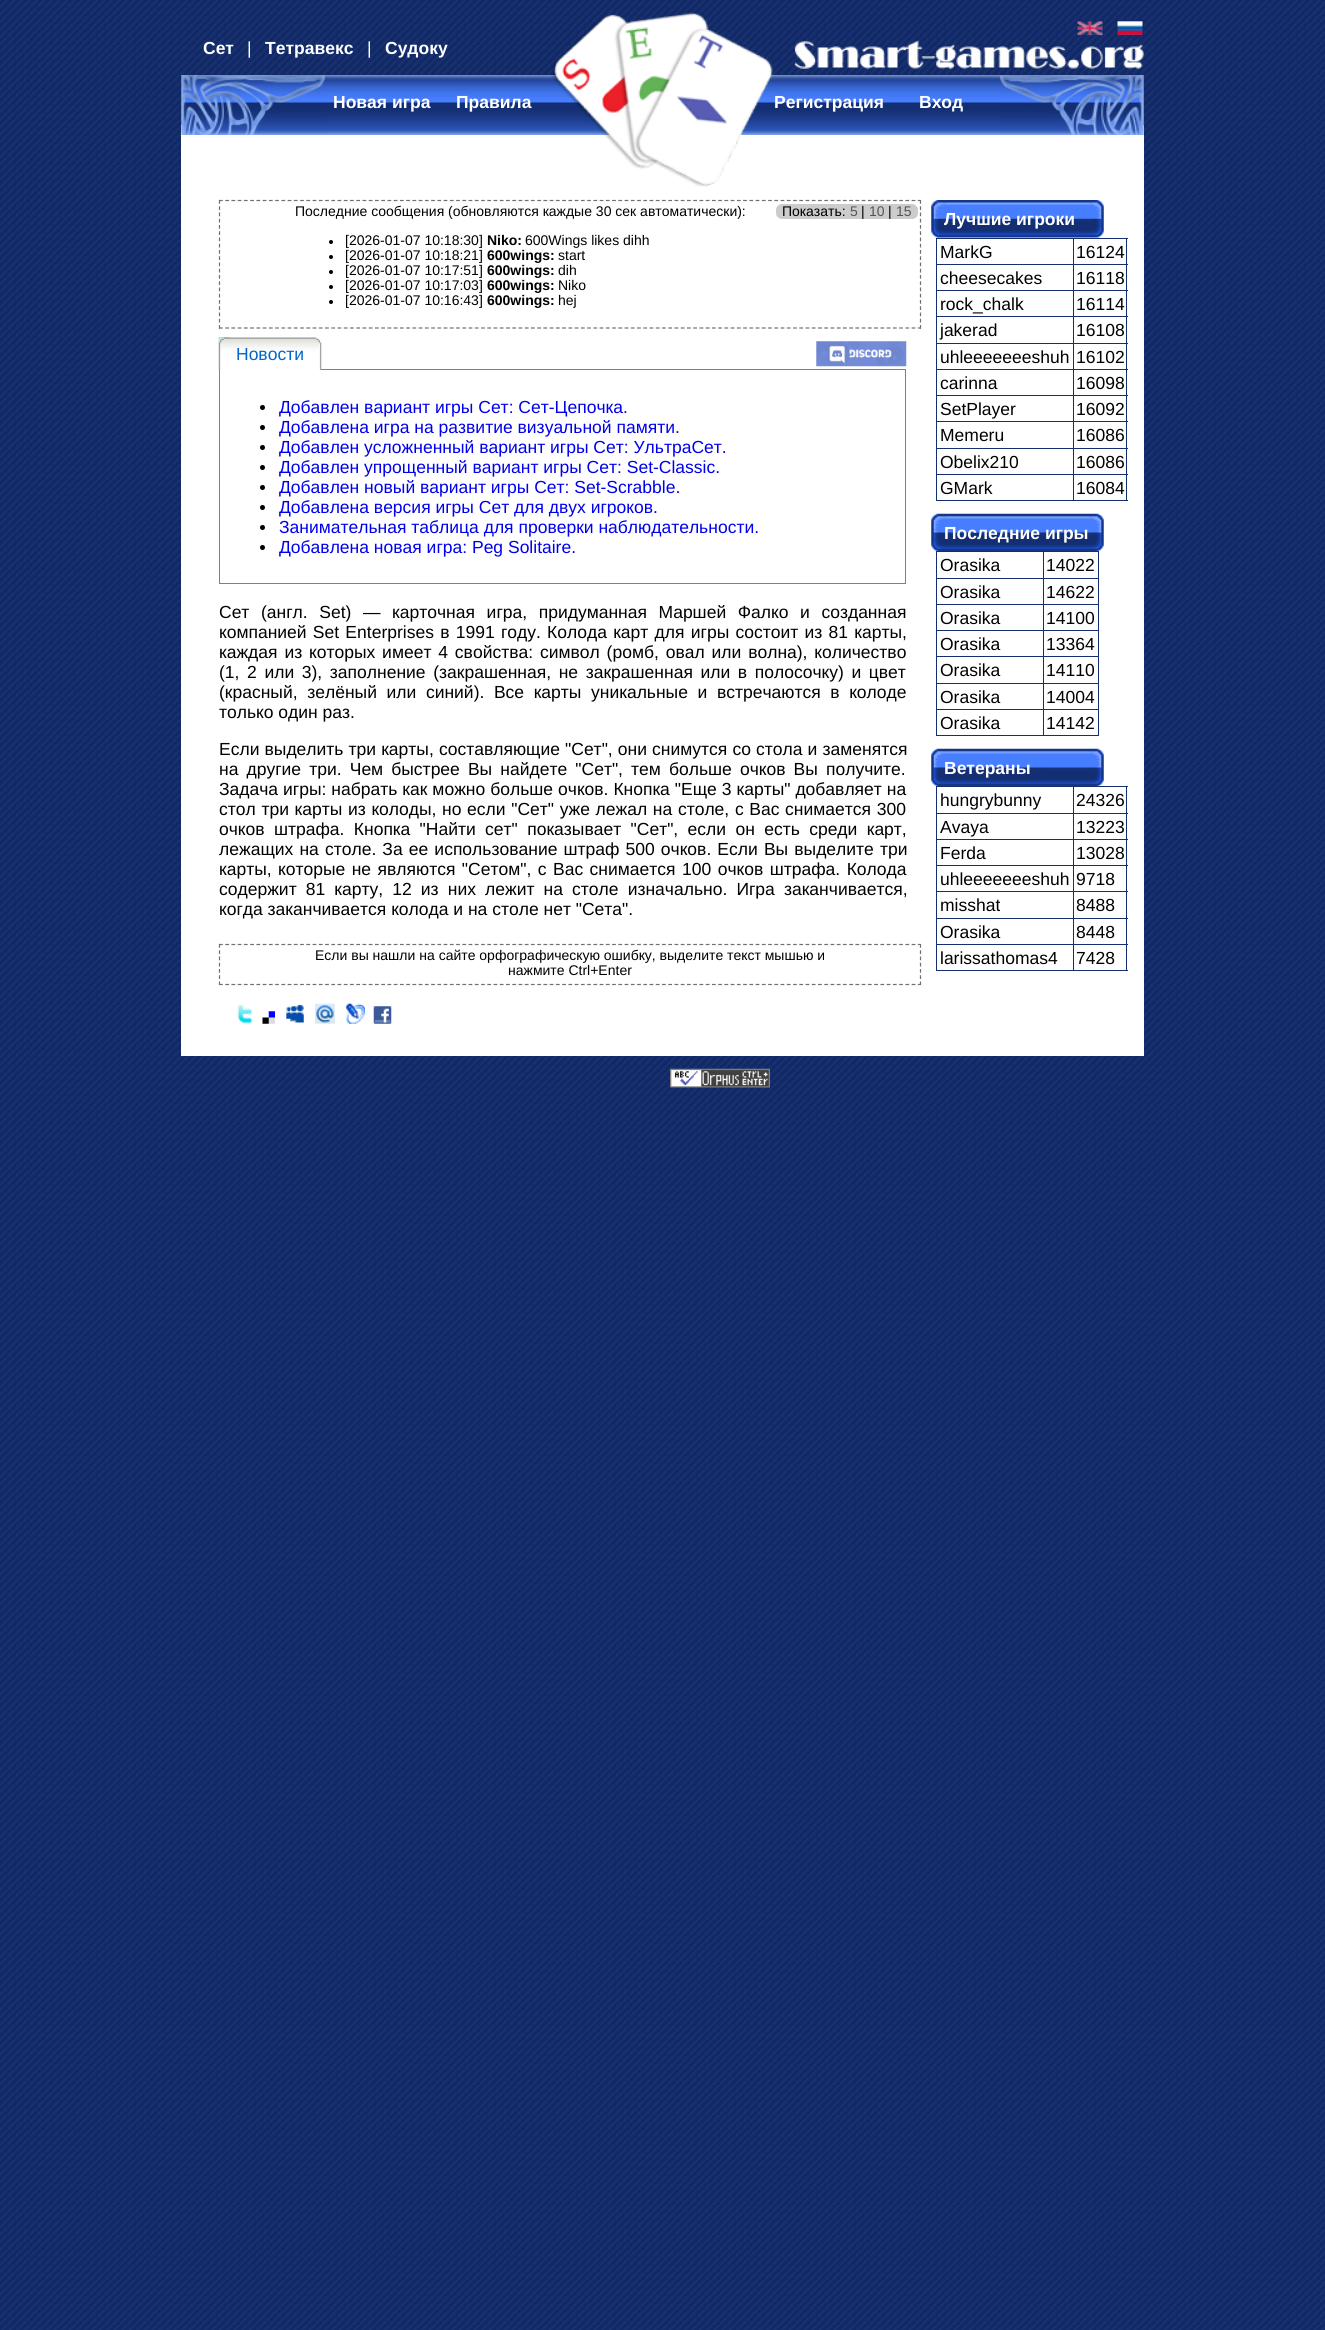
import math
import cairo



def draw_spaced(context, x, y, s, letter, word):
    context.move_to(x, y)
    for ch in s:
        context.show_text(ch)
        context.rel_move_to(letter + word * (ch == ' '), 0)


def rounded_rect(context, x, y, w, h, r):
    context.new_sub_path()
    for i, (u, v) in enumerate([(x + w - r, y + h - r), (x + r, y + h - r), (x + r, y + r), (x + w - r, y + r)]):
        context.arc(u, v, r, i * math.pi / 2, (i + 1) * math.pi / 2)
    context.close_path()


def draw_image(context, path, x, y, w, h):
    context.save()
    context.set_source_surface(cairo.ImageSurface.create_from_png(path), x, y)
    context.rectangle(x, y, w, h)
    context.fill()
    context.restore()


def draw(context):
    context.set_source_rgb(1, 1, 1)
    context.paint()
    draw_image(context, "images/1.png", 0, 0, 1325, 2330)
    draw_image(context, "images/2.png", 1076, 20, 28, 16)
    draw_image(context, "images/3.png", 1116, 20, 28, 16)
    draw_image(context, "images/4.png", 794, 40, 350, 29)
    context.set_source_rgb(1, 1, 1)
    context.rectangle(181, 125, 963, 931)
    context.fill()
    draw_image(context, "images/5.png", 181, 75, 144, 60)
    draw_image(context, "images/6.png", 325, 75, 675, 60)
    draw_image(context, "images/7.png", 551, 12, 222, 175)
    draw_image(context, "images/8.png", 1000, 75, 144, 60)
    context.new_path()
    context.move_to(219, 200.5)
    context.line_to(921, 200.5)
    context.set_source_rgb(115 / 255, 111 / 255, 110 / 255)
    context.set_line_width(1.2)
    context.set_dash([3.75, 2.49])
    context.stroke()
    context.new_path()
    context.move_to(920.5, 200)
    context.line_to(920.5, 329)
    context.set_dash([3.75, 2.5])
    context.stroke()
    context.new_path()
    context.move_to(219, 328)
    context.line_to(921, 328)
    context.set_dash([3.75, 2.49])
    context.stroke()
    context.new_path()
    context.move_to(219.5, 200)
    context.line_to(219.5, 329)
    context.set_dash([3.75, 2.5])
    context.stroke()
    context.set_source_rgb(204 / 255, 204 / 255, 204 / 255)
    rounded_rect(context, 776, 204, 142, 15, 6)
    context.fill()
    context.set_source_rgb(0, 0, 0)
    context.arc(331, 242, 2, 0, 2 * math.pi)
    context.fill()
    context.arc(331, 257, 2, 0, 2 * math.pi)
    context.fill()
    context.arc(331, 272, 2, 0, 2 * math.pi)
    context.fill()
    context.arc(331, 287, 2, 0, 2 * math.pi)
    context.fill()
    context.arc(331, 302, 2, 0, 2 * math.pi)
    context.fill()
    context.rectangle(219.5, 369.5, 686, 214)
    context.set_source_rgb(128 / 255, 128 / 255, 128 / 255)
    context.set_line_width(1)
    context.set_dash([])
    context.stroke()
    draw_image(context, "images/9.png", 218, 337, 104, 33)
    draw_image(context, "images/10.png", 218, 337, 12, 33)
    context.set_source_rgb(0, 0, 0)
    context.arc(262.5, 407.5, 2.5, 0, 2 * math.pi)
    context.fill()
    context.arc(262.5, 427.5, 2.5, 0, 2 * math.pi)
    context.fill()
    context.arc(262.5, 447.5, 2.5, 0, 2 * math.pi)
    context.fill()
    context.arc(262.5, 467.5, 2.5, 0, 2 * math.pi)
    context.fill()
    context.arc(262.5, 487.5, 2.5, 0, 2 * math.pi)
    context.fill()
    context.arc(262.5, 507.5, 2.5, 0, 2 * math.pi)
    context.fill()
    context.arc(262.5, 527.5, 2.5, 0, 2 * math.pi)
    context.fill()
    context.arc(262.5, 547.5, 2.5, 0, 2 * math.pi)
    context.fill()
    draw_image(context, "images/11.png", 816, 341, 91, 26)
    context.new_path()
    context.move_to(219, 944.5)
    context.line_to(921, 944.5)
    context.set_source_rgb(115 / 255, 111 / 255, 110 / 255)
    context.set_line_width(1.2)
    context.set_dash([3.75, 2.49])
    context.stroke()
    context.new_path()
    context.move_to(920.5, 944)
    context.line_to(920.5, 985)
    context.set_dash([3.75, 2.5])
    context.stroke()
    context.new_path()
    context.move_to(219, 984.5)
    context.line_to(921, 984.5)
    context.set_dash([3.75, 2.49])
    context.stroke()
    context.new_path()
    context.move_to(219.5, 944)
    context.line_to(219.5, 985)
    context.set_dash([3.75, 2.5])
    context.stroke()
    draw_image(context, "images/12.png", 237, 1005, 16, 19)
    draw_image(context, "images/13.png", 262, 1011, 13, 13)
    draw_image(context, "images/14.png", 286, 1004, 18, 19)
    draw_image(context, "images/15.png", 315, 1003, 20, 21)
    draw_image(context, "images/16.png", 345, 1003, 20, 21)
    draw_image(context, "images/17.png", 373, 1006, 19, 18)
    draw_image(context, "images/18.png", 931, 200, 173, 38)
    context.set_source_rgb(19 / 255, 46 / 255, 114 / 255)
    context.rectangle(936, 238, 192, 1)
    context.fill()
    context.rectangle(1126, 238, 1, 263)
    context.fill()
    context.rectangle(936, 500, 192, 1)
    context.fill()
    context.rectangle(936, 238, 1, 263)
    context.fill()
    context.rectangle(936, 264, 192, 1)
    context.fill()
    context.rectangle(936, 290, 192, 1)
    context.fill()
    context.rectangle(936, 316, 192, 1)
    context.fill()
    context.rectangle(936, 343, 192, 1)
    context.fill()
    context.rectangle(936, 369, 192, 1)
    context.fill()
    context.rectangle(936, 395, 192, 1)
    context.fill()
    context.rectangle(936, 421, 192, 1)
    context.fill()
    context.rectangle(936, 448, 192, 1)
    context.fill()
    context.rectangle(936, 474, 192, 1)
    context.fill()
    context.rectangle(1073, 238, 1, 263)
    context.fill()
    draw_image(context, "images/19.png", 931, 513, 173, 39)
    context.rectangle(936, 551, 163, 1)
    context.fill()
    context.rectangle(1098, 551, 1, 185)
    context.fill()
    context.rectangle(936, 735, 163, 1)
    context.fill()
    context.rectangle(936, 551, 1, 185)
    context.fill()
    context.rectangle(936, 578, 163, 1)
    context.fill()
    context.rectangle(936, 604, 163, 1)
    context.fill()
    context.rectangle(936, 630, 163, 1)
    context.fill()
    context.rectangle(936, 656, 163, 1)
    context.fill()
    context.rectangle(936, 683, 163, 1)
    context.fill()
    context.rectangle(936, 709, 163, 1)
    context.fill()
    context.rectangle(1043, 551, 1, 185)
    context.fill()
    draw_image(context, "images/19.png", 931, 748, 173, 39)
    context.rectangle(936, 786, 192, 1)
    context.fill()
    context.rectangle(1126, 786, 1, 185)
    context.fill()
    context.rectangle(936, 970, 192, 1)
    context.fill()
    context.rectangle(936, 786, 1, 185)
    context.fill()
    context.rectangle(936, 813, 192, 1)
    context.fill()
    context.rectangle(936, 839, 192, 1)
    context.fill()
    context.rectangle(936, 865, 192, 1)
    context.fill()
    context.rectangle(936, 891, 192, 1)
    context.fill()
    context.rectangle(936, 918, 192, 1)
    context.fill()
    context.rectangle(936, 944, 192, 1)
    context.fill()
    context.rectangle(1073, 786, 1, 185)
    context.fill()
    draw_image(context, "images/20.png", 670, 1068, 100, 20)
    context.select_font_face("Liberation Sans", cairo.FontSlant.NORMAL, cairo.FontWeight.BOLD)
    context.set_font_size(17.5)
    context.set_source_rgb(1, 1, 1)
    context.move_to(203, 54)
    context.show_text("Сет")
    context.select_font_face("Liberation Sans")
    context.move_to(247, 54)
    context.show_text("|")
    context.select_font_face("Liberation Sans", cairo.FontSlant.NORMAL, cairo.FontWeight.BOLD)
    context.move_to(265, 54)
    context.show_text("Тетравекс")
    context.select_font_face("Liberation Sans")
    context.move_to(367, 54)
    context.show_text("|")
    context.select_font_face("Liberation Sans", cairo.FontSlant.NORMAL, cairo.FontWeight.BOLD)
    context.move_to(385, 54)
    context.show_text("Судоку")
    context.move_to(333, 108)
    context.show_text("Новая игра")
    context.move_to(456, 108)
    context.show_text("Правила")
    context.move_to(774, 108)
    context.show_text("Регистрация")
    context.move_to(919, 108)
    context.show_text("Вход")
    context.select_font_face("Liberation Sans")
    context.set_font_size(14)
    context.set_source_rgb(0, 0, 0)
    context.move_to(295, 216)
    context.show_text("Последние сообщения (обновляются каждые 30 сек автоматически):")
    context.move_to(782, 216)
    context.show_text("Показать:")
    context.set_source_rgb(85 / 255, 85 / 255, 85 / 255)
    context.move_to(850, 216)
    context.show_text("5")
    context.set_source_rgb(0, 0, 0)
    context.move_to(861, 216)
    context.show_text("|")
    context.set_source_rgb(85 / 255, 85 / 255, 85 / 255)
    context.move_to(869, 216)
    context.show_text("10")
    context.set_source_rgb(0, 0, 0)
    context.move_to(888, 216)
    context.show_text("|")
    context.set_source_rgb(85 / 255, 85 / 255, 85 / 255)
    context.move_to(896, 216)
    context.show_text("15")
    context.set_source_rgb(0, 0, 0)
    context.move_to(345, 245)
    context.show_text("[2026-01-07 10:18:30]")
    context.select_font_face("Liberation Sans", cairo.FontSlant.NORMAL, cairo.FontWeight.BOLD)
    context.move_to(487, 245)
    context.show_text("Niko:")
    context.select_font_face("Liberation Sans")
    context.move_to(525, 245)
    context.show_text("600Wings likes dihh")
    context.move_to(345, 260)
    context.show_text("[2026-01-07 10:18:21]")
    context.select_font_face("Liberation Sans", cairo.FontSlant.NORMAL, cairo.FontWeight.BOLD)
    context.move_to(487, 260)
    context.show_text("600wings:")
    context.select_font_face("Liberation Sans")
    context.move_to(558, 260)
    context.show_text("start")
    context.move_to(345, 275)
    context.show_text("[2026-01-07 10:17:51]")
    context.select_font_face("Liberation Sans", cairo.FontSlant.NORMAL, cairo.FontWeight.BOLD)
    context.move_to(487, 275)
    context.show_text("600wings:")
    context.select_font_face("Liberation Sans")
    context.move_to(558, 275)
    context.show_text("dih")
    context.move_to(345, 290)
    context.show_text("[2026-01-07 10:17:03]")
    context.select_font_face("Liberation Sans", cairo.FontSlant.NORMAL, cairo.FontWeight.BOLD)
    context.move_to(487, 290)
    context.show_text("600wings:")
    context.select_font_face("Liberation Sans")
    context.move_to(558, 290)
    context.show_text("Niko")
    context.move_to(345, 305)
    context.show_text("[2026-01-07 10:16:43]")
    context.select_font_face("Liberation Sans", cairo.FontSlant.NORMAL, cairo.FontWeight.BOLD)
    context.move_to(487, 305)
    context.show_text("600wings:")
    context.select_font_face("Liberation Sans")
    context.move_to(558, 305)
    context.show_text("hej")
    context.set_font_size(17.5)
    context.set_source_rgb(0, 102 / 255, 204 / 255)
    context.move_to(236, 360)
    context.show_text("Новости")
    context.set_source_rgb(0, 0, 238 / 255)
    context.move_to(279, 413)
    context.show_text("Добавлен вариант игры Сет: Сет-Цепочка.")
    context.move_to(279, 433)
    context.show_text("Добавлена игра на развитие визуальной памяти.")
    context.move_to(279, 453)
    context.show_text("Добавлен усложненный вариант игры Сет: УльтраСет.")
    context.move_to(279, 473)
    context.show_text("Добавлен упрощенный вариант игры Сет: Set-Classic.")
    context.move_to(279, 493)
    context.show_text("Добавлен новый вариант игры Сет: Set-Scrabble.")
    context.move_to(279, 513)
    context.show_text("Добавлена версия игры Сет для двух игроков.")
    context.move_to(279, 533)
    context.show_text("Занимательная таблица для проверки наблюдательности.")
    context.move_to(279, 553)
    context.show_text("Добавлена новая игра: Peg Solitaire.")
    context.set_source_rgb(0, 0, 0)
    draw_spaced(context, 219, 618, "Сет (англ. Set) — карточная игра, придуманная Маршей Фалко и созданная", 0, 6.75)
    draw_spaced(context, 219, 638, "компанией Set Enterprises в 1991 году. Колода карт для игры состоит из 81 карты,", 0, 1.4)
    draw_spaced(context, 219, 658, "каждая из которых имеет 4 свойства: символ (ромб, овал или волна), количество", 0, 2)
    draw_spaced(context, 219, 678, "(1, 2 или 3), заполнение (закрашенная, не закрашенная или в полосочку) и цвет", 0, 2.75)
    draw_spaced(context, 219, 698, "(красный, зелёный или синий). Все карты уникальные и встречаются в колоде", 0, 4.75)
    context.move_to(219, 718)
    context.show_text("только один раз.")
    draw_spaced(context, 219, 755, "Если выделить три карты, составляющие \"Сет\", они снимутся со стола и заменятся", 0, 0.25)
    draw_spaced(context, 219, 775, "на другие три. Чем быстрее Вы найдете \"Сет\", тем больше очков Вы получите.", 0, 3.25)
    draw_spaced(context, 219, 795, "Задача игры: набрать как можно больше очков. Кнопка \"Еще 3 карты\" добавляет на", 0, 0.1)
    draw_spaced(context, 219, 815, "стол три карты из колоды, но если \"Сет\" уже лежал на столе, с Вас снимается 300", 0, 0.8)
    draw_spaced(context, 219, 835, "очков штрафа. Кнопка \"Найти сет\" показывает \"Сет\", если он есть среди карт,", 0, 4.5)
    draw_spaced(context, 219, 855, "лежащих на столе. За ее использование штраф 500 очков. Если Вы выделите три", 0, 1.25)
    draw_spaced(context, 219, 875, "карты, которые не являются \"Сетом\", с Вас снимается 100 очков штрафа. Колода", 0, 1.6)
    draw_spaced(context, 219, 895, "содержит 81 карту, 12 из них лежит на столе изначально. Игра заканчивается,", 0, 4.25)
    context.move_to(219, 915)
    context.show_text("когда заканчивается колода и на столе нет \"Сета\".")
    context.set_font_size(14)
    context.move_to(315, 960)
    context.show_text("Если вы нашли на сайте орфографическую ошибку, выделите текст мышью и")
    context.move_to(508, 975)
    context.show_text("нажмите Ctrl+Enter")
    context.select_font_face("Liberation Sans", cairo.FontSlant.NORMAL, cairo.FontWeight.BOLD)
    context.set_font_size(17.5)
    context.set_source_rgb(1, 1, 1)
    context.move_to(944, 225)
    context.show_text("Лучшие игроки")
    context.select_font_face("Liberation Sans")
    context.set_source_rgb(0, 0, 0)
    context.move_to(940, 258)
    context.show_text("MarkG")
    context.move_to(1076, 258)
    context.show_text("16124")
    context.move_to(940, 284)
    context.show_text("cheesecakes")
    context.move_to(1076, 284)
    context.show_text("16118")
    context.move_to(940, 310)
    context.show_text("rock_chalk")
    context.move_to(1076, 310)
    context.show_text("16114")
    context.move_to(940, 336)
    context.show_text("jakerad")
    context.move_to(1076, 336)
    context.show_text("16108")
    context.move_to(940, 363)
    context.show_text("uhleeeeeeeshuh")
    context.move_to(1076, 363)
    context.show_text("16102")
    context.move_to(940, 389)
    context.show_text("carinna")
    context.move_to(1076, 389)
    context.show_text("16098")
    context.move_to(940, 415)
    context.show_text("SetPlayer")
    context.move_to(1076, 415)
    context.show_text("16092")
    context.move_to(940, 441)
    context.show_text("Memeru")
    context.move_to(1076, 441)
    context.show_text("16086")
    context.move_to(940, 468)
    context.show_text("Obelix210")
    context.move_to(1076, 468)
    context.show_text("16086")
    context.move_to(940, 494)
    context.show_text("GMark")
    context.move_to(1076, 494)
    context.show_text("16084")
    context.select_font_face("Liberation Sans", cairo.FontSlant.NORMAL, cairo.FontWeight.BOLD)
    context.set_source_rgb(1, 1, 1)
    context.move_to(944, 539)
    context.show_text("Последние игры")
    context.select_font_face("Liberation Sans")
    context.set_source_rgb(0, 0, 0)
    context.move_to(940, 571)
    context.show_text("Orasika")
    context.move_to(1046, 571)
    context.show_text("14022")
    context.move_to(940, 598)
    context.show_text("Orasika")
    context.move_to(1046, 598)
    context.show_text("14622")
    context.move_to(940, 624)
    context.show_text("Orasika")
    context.move_to(1046, 624)
    context.show_text("14100")
    context.move_to(940, 650)
    context.show_text("Orasika")
    context.move_to(1046, 650)
    context.show_text("13364")
    context.move_to(940, 676)
    context.show_text("Orasika")
    context.move_to(1046, 676)
    context.show_text("14110")
    context.move_to(940, 703)
    context.show_text("Orasika")
    context.move_to(1046, 703)
    context.show_text("14004")
    context.move_to(940, 729)
    context.show_text("Orasika")
    context.move_to(1046, 729)
    context.show_text("14142")
    context.select_font_face("Liberation Sans", cairo.FontSlant.NORMAL, cairo.FontWeight.BOLD)
    context.set_source_rgb(1, 1, 1)
    context.move_to(944, 774)
    context.show_text("Ветераны")
    context.select_font_face("Liberation Sans")
    context.set_source_rgb(0, 0, 0)
    context.move_to(940, 806)
    context.show_text("hungrybunny")
    context.move_to(1076, 806)
    context.show_text("24326")
    context.move_to(940, 833)
    context.show_text("Avaya")
    context.move_to(1076, 833)
    context.show_text("13223")
    context.move_to(940, 859)
    context.show_text("Ferda")
    context.move_to(1076, 859)
    context.show_text("13028")
    context.move_to(940, 885)
    context.show_text("uhleeeeeeeshuh")
    context.move_to(1076, 885)
    context.show_text("9718")
    context.move_to(940, 911)
    context.show_text("misshat")
    context.move_to(1076, 911)
    context.show_text("8488")
    context.move_to(940, 938)
    context.show_text("Orasika")
    context.move_to(1076, 938)
    context.show_text("8448")
    context.move_to(940, 964)
    context.show_text("larissathomas4")
    context.move_to(1076, 964)
    context.show_text("7428")


surface = cairo.ImageSurface(cairo.Format.RGB24, 1325, 2330)
context = cairo.Context(surface)
options = cairo.FontOptions()
options.set_hint_metrics(cairo.HintMetrics.OFF)
options.set_hint_style(cairo.HintStyle.NONE)
context.set_font_options(options)
context.set_miter_limit(4)
draw(context)
surface.write_to_png("out.png")
